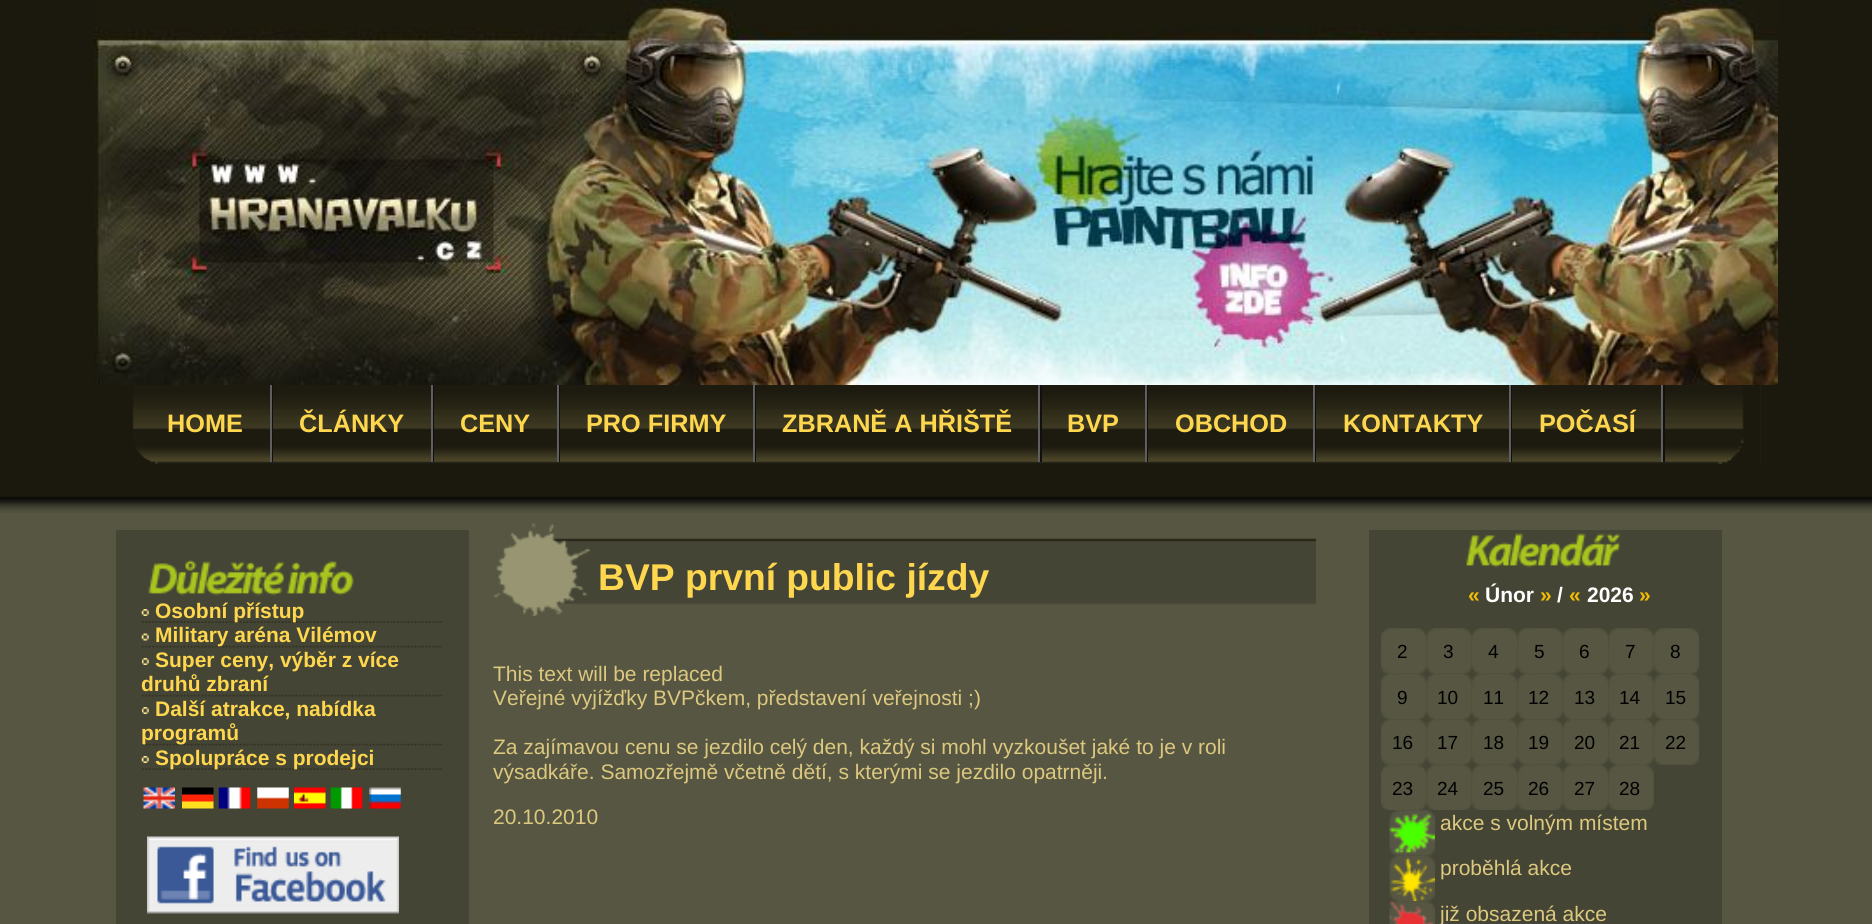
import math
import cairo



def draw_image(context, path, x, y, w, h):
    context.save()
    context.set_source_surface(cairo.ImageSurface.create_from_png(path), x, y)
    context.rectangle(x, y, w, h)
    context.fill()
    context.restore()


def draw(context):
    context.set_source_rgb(86 / 255, 86 / 255, 66 / 255)
    context.paint()
    draw_image(context, "images/1.png", 0, 0, 1872, 513)
    draw_image(context, "images/2.png", 94, 0, 1684, 385)
    context.set_source_rgb(34 / 255, 34 / 255, 34 / 255)
    context.rectangle(116, 385, 1645, 79)
    context.fill()
    draw_image(context, "images/3.png", 116, 385, 1645, 79)
    context.set_source_rgb(16 / 255, 16 / 255, 16 / 255)
    context.rectangle(272, 385, 1, 77)
    context.fill()
    context.set_source_rgb(95 / 255, 95 / 255, 95 / 255)
    context.rectangle(270, 385, 2, 77)
    context.fill()
    context.set_source_rgb(16 / 255, 16 / 255, 16 / 255)
    context.rectangle(433, 385, 1, 77)
    context.fill()
    context.set_source_rgb(95 / 255, 95 / 255, 95 / 255)
    context.rectangle(431, 385, 2, 77)
    context.fill()
    context.set_source_rgb(16 / 255, 16 / 255, 16 / 255)
    context.rectangle(559, 385, 1, 77)
    context.fill()
    context.set_source_rgb(95 / 255, 95 / 255, 95 / 255)
    context.rectangle(557, 385, 2, 77)
    context.fill()
    context.set_source_rgb(16 / 255, 16 / 255, 16 / 255)
    context.rectangle(755, 385, 1, 77)
    context.fill()
    context.set_source_rgb(95 / 255, 95 / 255, 95 / 255)
    context.rectangle(753, 385, 2, 77)
    context.fill()
    context.set_source_rgb(16 / 255, 16 / 255, 16 / 255)
    context.rectangle(1040, 385, 2, 77)
    context.fill()
    context.set_source_rgb(95 / 255, 95 / 255, 95 / 255)
    context.rectangle(1038, 385, 2, 77)
    context.fill()
    context.set_source_rgb(16 / 255, 16 / 255, 16 / 255)
    context.rectangle(1147, 385, 1, 77)
    context.fill()
    context.set_source_rgb(95 / 255, 95 / 255, 95 / 255)
    context.rectangle(1145, 385, 2, 77)
    context.fill()
    context.set_source_rgb(16 / 255, 16 / 255, 16 / 255)
    context.rectangle(1315, 385, 1, 77)
    context.fill()
    context.set_source_rgb(95 / 255, 95 / 255, 95 / 255)
    context.rectangle(1313, 385, 2, 77)
    context.fill()
    context.set_source_rgb(16 / 255, 16 / 255, 16 / 255)
    context.rectangle(1511, 385, 1, 77)
    context.fill()
    context.set_source_rgb(95 / 255, 95 / 255, 95 / 255)
    context.rectangle(1509, 385, 2, 77)
    context.fill()
    context.set_source_rgb(16 / 255, 16 / 255, 16 / 255)
    context.rectangle(1663, 385, 2, 77)
    context.fill()
    context.set_source_rgb(95 / 255, 95 / 255, 95 / 255)
    context.rectangle(1661, 385, 2, 77)
    context.fill()
    draw_image(context, "images/4.png", 116, 439, 40, 25)
    context.set_source_rgb(69 / 255, 69 / 255, 53 / 255)
    context.rectangle(116, 530, 353, 394)
    context.fill()
    draw_image(context, "images/5.png", 148, 559, 206, 37)
    draw_image(context, "images/6.png", 142, 621, 301, 2)
    draw_image(context, "images/7.png", 141, 609, 8, 7)
    draw_image(context, "images/8.png", 142, 645, 301, 3)
    draw_image(context, "images/9.png", 141, 633, 8, 8)
    draw_image(context, "images/8.png", 142, 694, 301, 3)
    draw_image(context, "images/10.png", 142, 658, 7, 7)
    draw_image(context, "images/8.png", 142, 743, 301, 3)
    draw_image(context, "images/10.png", 142, 707, 7, 7)
    draw_image(context, "images/6.png", 142, 768, 301, 2)
    draw_image(context, "images/7.png", 141, 756, 8, 7)
    draw_image(context, "images/11.png", 143, 787, 32, 22)
    draw_image(context, "images/12.png", 182, 787, 32, 22)
    draw_image(context, "images/13.png", 218, 787, 33, 22)
    draw_image(context, "images/14.png", 257, 787, 32, 22)
    draw_image(context, "images/15.png", 294, 787, 32, 22)
    draw_image(context, "images/16.png", 330, 787, 33, 22)
    draw_image(context, "images/17.png", 369, 787, 32, 22)
    draw_image(context, "images/18.png", 147, 836, 252, 78)
    draw_image(context, "images/19.png", 493, 523, 823, 93)
    context.rectangle(1369, 530, 353, 394)
    context.fill()
    draw_image(context, "images/20.png", 1466, 533, 155, 35)
    draw_image(context, "images/21.png", 1381, 628, 45, 46)
    draw_image(context, "images/22.png", 1426, 628, 46, 46)
    draw_image(context, "images/23.png", 1472, 628, 45, 46)
    draw_image(context, "images/24.png", 1517, 628, 46, 46)
    draw_image(context, "images/23.png", 1563, 628, 45, 46)
    draw_image(context, "images/25.png", 1608, 628, 46, 46)
    draw_image(context, "images/23.png", 1654, 628, 45, 46)
    draw_image(context, "images/26.png", 1381, 674, 45, 45)
    draw_image(context, "images/27.png", 1426, 674, 46, 45)
    draw_image(context, "images/28.png", 1472, 674, 45, 45)
    draw_image(context, "images/29.png", 1517, 674, 46, 45)
    draw_image(context, "images/28.png", 1563, 674, 45, 45)
    draw_image(context, "images/29.png", 1608, 674, 46, 45)
    draw_image(context, "images/28.png", 1654, 674, 45, 45)
    draw_image(context, "images/21.png", 1381, 719, 45, 46)
    draw_image(context, "images/22.png", 1426, 719, 46, 46)
    draw_image(context, "images/23.png", 1472, 719, 45, 46)
    draw_image(context, "images/24.png", 1517, 719, 46, 46)
    draw_image(context, "images/23.png", 1563, 719, 45, 46)
    draw_image(context, "images/25.png", 1608, 719, 46, 46)
    draw_image(context, "images/23.png", 1654, 719, 45, 46)
    draw_image(context, "images/26.png", 1381, 765, 45, 45)
    draw_image(context, "images/27.png", 1426, 765, 46, 45)
    draw_image(context, "images/28.png", 1472, 765, 45, 45)
    draw_image(context, "images/29.png", 1517, 765, 46, 45)
    draw_image(context, "images/28.png", 1563, 765, 45, 45)
    draw_image(context, "images/29.png", 1608, 765, 46, 45)
    draw_image(context, "images/30.png", 1389, 810, 46, 46)
    draw_image(context, "images/31.png", 1389, 856, 46, 46)
    draw_image(context, "images/32.png", 1389, 901, 46, 23)
    context.select_font_face("Liberation Sans", cairo.FontSlant.NORMAL, cairo.FontWeight.BOLD)
    context.set_font_size(25.25)
    context.set_source_rgb(254 / 255, 215 / 255, 79 / 255)
    context.move_to(167, 432)
    context.show_text("HOME")
    context.move_to(299, 432)
    context.show_text("ČLÁNKY")
    context.move_to(460, 432)
    context.show_text("CENY")
    context.move_to(586, 432)
    context.show_text("PRO FIRMY")
    context.move_to(782, 432)
    context.show_text("ZBRANĚ A HŘIŠTĚ")
    context.move_to(1067, 432)
    context.show_text("BVP")
    context.move_to(1175, 432)
    context.show_text("OBCHOD")
    context.move_to(1343, 432)
    context.show_text("KONTAKTY")
    context.move_to(1539, 432)
    context.show_text("POČASÍ")
    context.set_font_size(21)
    context.move_to(155, 618)
    context.show_text("Osobní přístup")
    context.move_to(155, 642)
    context.show_text("Military aréna Vilémov")
    context.move_to(155, 667)
    context.show_text("Super ceny, výběr z více")
    context.move_to(141, 691)
    context.show_text("druhů zbraní")
    context.move_to(155, 716)
    context.show_text("Další atrakce, nabídka")
    context.move_to(141, 740)
    context.show_text("programů")
    context.move_to(155, 765)
    context.show_text("Spolupráce s prodejci")
    context.set_font_size(37.25)
    context.move_to(598, 590)
    context.show_text("BVP první public jízdy")
    context.select_font_face("Liberation Sans")
    context.set_font_size(21)
    context.set_source_rgb(220 / 255, 200 / 255, 126 / 255)
    context.move_to(493, 681)
    context.show_text("This text will be replaced")
    context.move_to(493, 705)
    context.show_text("Veřejné vyjížďky BVPčkem, představení veřejnosti ;)")
    context.move_to(493, 754)
    context.show_text("Za zajímavou cenu se jezdilo celý den, každý si mohl vyzkoušet jaké to je v roli")
    context.move_to(493, 779)
    context.show_text("výsadkáře. Samozřejmě včetně dětí, s kterými se jezdilo opatrněji.")
    context.move_to(493, 824)
    context.show_text("20.10.2010")
    context.select_font_face("Liberation Sans", cairo.FontSlant.NORMAL, cairo.FontWeight.BOLD)
    context.set_source_rgb(241 / 255, 189 / 255, 7 / 255)
    context.move_to(1468, 602)
    context.show_text("«")
    context.set_source_rgb(1, 1, 1)
    context.move_to(1485, 602)
    context.show_text("Únor")
    context.set_source_rgb(241 / 255, 189 / 255, 7 / 255)
    context.move_to(1540, 602)
    context.show_text("»")
    context.set_source_rgb(1, 1, 1)
    context.move_to(1557, 602)
    context.show_text("/")
    context.set_source_rgb(241 / 255, 189 / 255, 7 / 255)
    context.move_to(1569, 602)
    context.show_text("«")
    context.set_source_rgb(1, 1, 1)
    context.move_to(1587, 602)
    context.show_text("2026")
    context.set_source_rgb(241 / 255, 189 / 255, 7 / 255)
    context.move_to(1639, 602)
    context.show_text("»")
    context.select_font_face("Liberation Sans")
    context.set_font_size(19)
    context.set_source_rgb(0, 0, 0)
    context.move_to(1397, 658)
    context.show_text("2")
    context.move_to(1443, 658)
    context.show_text("3")
    context.move_to(1488, 658)
    context.show_text("4")
    context.move_to(1534, 658)
    context.show_text("5")
    context.move_to(1579, 658)
    context.show_text("6")
    context.move_to(1625, 658)
    context.show_text("7")
    context.move_to(1670, 658)
    context.show_text("8")
    context.move_to(1397, 704)
    context.show_text("9")
    context.move_to(1437, 704)
    context.show_text("10")
    context.move_to(1483, 704)
    context.show_text("11")
    context.move_to(1528, 704)
    context.show_text("12")
    context.move_to(1574, 704)
    context.show_text("13")
    context.move_to(1619, 704)
    context.show_text("14")
    context.move_to(1665, 704)
    context.show_text("15")
    context.move_to(1392, 749)
    context.show_text("16")
    context.move_to(1437, 749)
    context.show_text("17")
    context.move_to(1483, 749)
    context.show_text("18")
    context.move_to(1528, 749)
    context.show_text("19")
    context.move_to(1574, 749)
    context.show_text("20")
    context.move_to(1619, 749)
    context.show_text("21")
    context.move_to(1665, 749)
    context.show_text("22")
    context.move_to(1392, 795)
    context.show_text("23")
    context.move_to(1437, 795)
    context.show_text("24")
    context.move_to(1483, 795)
    context.show_text("25")
    context.move_to(1528, 795)
    context.show_text("26")
    context.move_to(1574, 795)
    context.show_text("27")
    context.move_to(1619, 795)
    context.show_text("28")
    context.set_font_size(21)
    context.set_source_rgb(220 / 255, 200 / 255, 126 / 255)
    context.move_to(1440, 830)
    context.show_text("akce s volným místem")
    context.move_to(1440, 875)
    context.show_text("proběhlá akce")
    context.move_to(1440, 921)
    context.show_text("již obsazená akce")


surface = cairo.ImageSurface(cairo.Format.RGB24, 1872, 924)
context = cairo.Context(surface)
options = cairo.FontOptions()
options.set_hint_metrics(cairo.HintMetrics.OFF)
options.set_hint_style(cairo.HintStyle.NONE)
context.set_font_options(options)
context.set_miter_limit(4)
draw(context)
surface.write_to_png("out.png")
